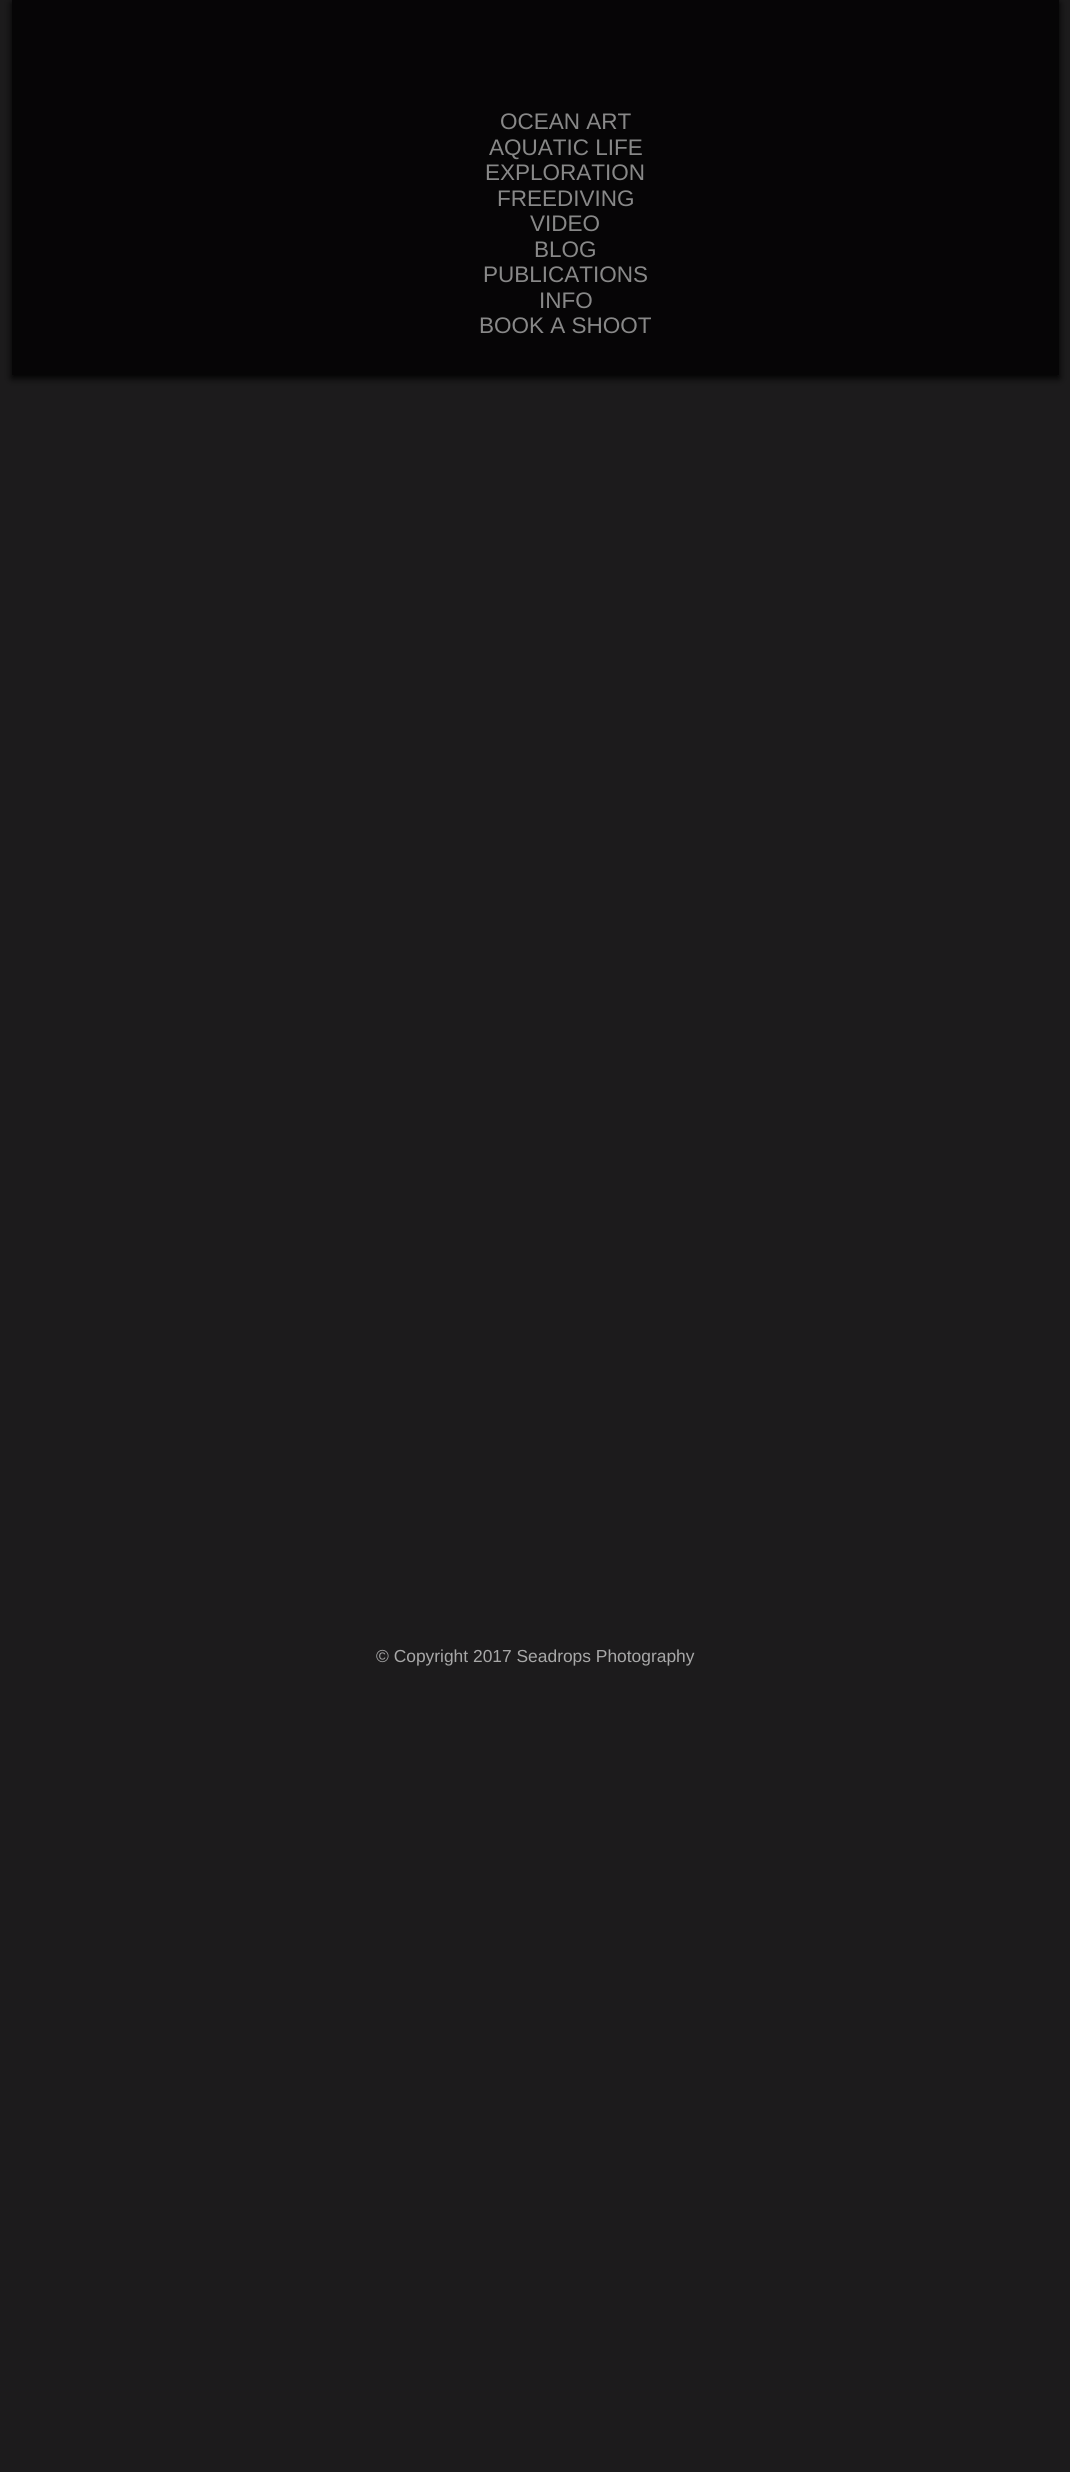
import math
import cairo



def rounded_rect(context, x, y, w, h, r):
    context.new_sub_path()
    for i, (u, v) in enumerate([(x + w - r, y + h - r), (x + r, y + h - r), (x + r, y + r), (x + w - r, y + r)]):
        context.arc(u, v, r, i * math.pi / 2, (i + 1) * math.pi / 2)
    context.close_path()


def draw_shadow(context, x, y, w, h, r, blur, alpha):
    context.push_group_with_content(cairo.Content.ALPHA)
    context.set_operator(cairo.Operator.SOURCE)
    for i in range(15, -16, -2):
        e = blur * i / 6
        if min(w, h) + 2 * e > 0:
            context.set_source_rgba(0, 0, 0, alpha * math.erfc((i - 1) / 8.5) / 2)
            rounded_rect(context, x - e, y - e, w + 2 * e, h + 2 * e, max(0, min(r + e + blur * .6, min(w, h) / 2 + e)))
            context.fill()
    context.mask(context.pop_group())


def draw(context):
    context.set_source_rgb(28 / 255, 27 / 255, 28 / 255)
    context.paint()
    context.set_source_rgb(0, 0, 0)
    draw_shadow(context, 12, 3, 1047, 375, 0, 4, 1)
    context.set_source_rgb(6 / 255, 5 / 255, 6 / 255)
    context.rectangle(12, 0, 1047, 375)
    context.fill()
    context.select_font_face("Liberation Sans")
    context.set_font_size(22.5)
    context.set_source_rgb(136 / 255, 136 / 255, 136 / 255)
    context.move_to(500, 129)
    context.show_text("OCEAN ART")
    context.move_to(489, 155)
    context.show_text("AQUATIC LIFE")
    context.move_to(485, 180)
    context.show_text("EXPLORATION")
    context.move_to(497, 206)
    context.show_text("FREEDIVING")
    context.move_to(530, 231)
    context.show_text("VIDEO")
    context.move_to(534, 257)
    context.show_text("BLOG")
    context.move_to(483, 282)
    context.show_text("PUBLICATIONS")
    context.move_to(539, 308)
    context.show_text("INFO")
    context.move_to(479, 333)
    context.show_text("BOOK A SHOOT")
    context.set_font_size(17.4)
    context.set_source_rgb(168 / 255, 168 / 255, 168 / 255)
    context.move_to(376, 1662)
    context.show_text("© Copyright 2017 Seadrops Photography")


surface = cairo.ImageSurface(cairo.Format.RGB24, 1070, 2472)
context = cairo.Context(surface)
options = cairo.FontOptions()
options.set_hint_metrics(cairo.HintMetrics.OFF)
options.set_hint_style(cairo.HintStyle.NONE)
context.set_font_options(options)
context.set_miter_limit(4)
draw(context)
surface.write_to_png("out.png")
